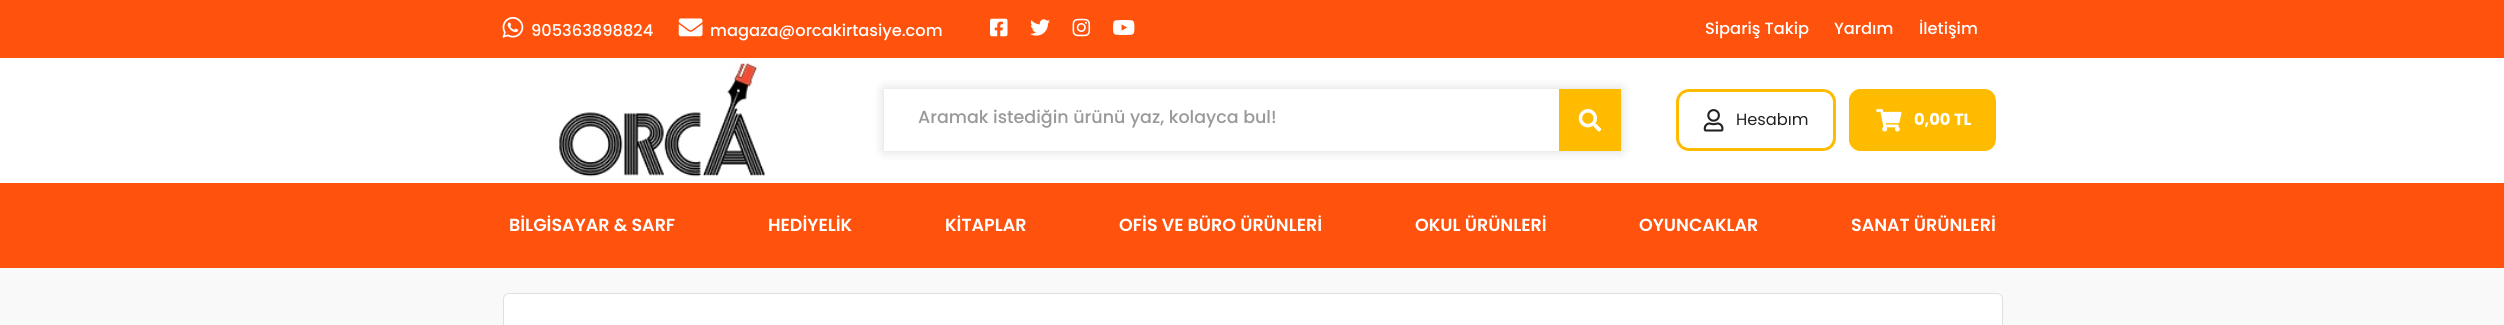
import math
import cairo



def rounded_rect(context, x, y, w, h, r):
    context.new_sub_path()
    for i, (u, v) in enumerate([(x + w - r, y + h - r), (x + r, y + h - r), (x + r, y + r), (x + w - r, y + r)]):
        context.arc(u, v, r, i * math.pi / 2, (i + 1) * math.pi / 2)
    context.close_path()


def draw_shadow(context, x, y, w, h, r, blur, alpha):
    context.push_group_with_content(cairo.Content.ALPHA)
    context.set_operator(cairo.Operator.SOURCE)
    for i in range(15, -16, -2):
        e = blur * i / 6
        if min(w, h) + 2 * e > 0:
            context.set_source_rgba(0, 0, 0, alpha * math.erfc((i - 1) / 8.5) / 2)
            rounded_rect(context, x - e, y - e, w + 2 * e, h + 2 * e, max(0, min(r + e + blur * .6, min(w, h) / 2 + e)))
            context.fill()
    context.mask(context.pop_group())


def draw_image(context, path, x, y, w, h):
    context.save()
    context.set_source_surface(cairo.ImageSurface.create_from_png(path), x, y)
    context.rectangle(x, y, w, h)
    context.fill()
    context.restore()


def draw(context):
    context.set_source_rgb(249 / 255, 249 / 255, 249 / 255)
    context.paint()
    context.set_source_rgb(1, 1, 1)
    context.rectangle(0, 58, 2504, 125)
    context.fill()
    context.set_source_rgb(1, 83 / 255, 13 / 255)
    context.rectangle(0, 0, 2504, 58)
    context.fill()
    draw_image(context, "images/1.png", 502, 17, 22, 21)
    draw_image(context, "images/2.png", 678, 18, 25, 19)
    draw_image(context, "images/3.png", 990, 18, 18, 19)
    draw_image(context, "images/4.png", 1030, 19, 20, 17)
    draw_image(context, "images/5.png", 1072, 18, 19, 19)
    draw_image(context, "images/6.png", 1113, 20, 22, 15)
    draw_image(context, "images/7.png", 559, 63, 206, 114)
    context.save()
    context.set_fill_rule(cairo.FillRule.EVEN_ODD)
    context.new_path()
    context.move_to(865, 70)
    context.line_to(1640, 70)
    context.line_to(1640, 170)
    context.line_to(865, 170)
    context.close_path()
    context.move_to(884, 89)
    context.line_to(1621, 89)
    context.line_to(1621, 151)
    context.line_to(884, 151)
    context.close_path()
    context.clip()
    context.set_source_rgb(0, 0, 0)
    draw_shadow(context, 884, 89, 737, 62, 0, 6, 0.15)
    context.restore()
    context.set_source_rgb(1, 187 / 255, 0)
    context.rectangle(1559, 89, 62, 62)
    context.fill()
    draw_image(context, "images/8.png", 1578, 109, 24, 23)
    rounded_rect(context, 1677.5, 90.5, 157, 59, 11.5)
    context.set_line_width(3)
    context.stroke()
    draw_image(context, "images/9.png", 1703, 109, 21, 23)
    rounded_rect(context, 1849, 89, 147, 62, 13)
    context.fill()
    context.set_fill_rule(cairo.FillRule.EVEN_ODD)
    context.new_path()
    context.move_to(1861, 89)
    context.line_to(1984, 89)
    context.curve_to(1991, 89, 1996, 94, 1996, 101)
    context.line_to(1996, 139)
    context.curve_to(1996, 146, 1991, 151, 1984, 151)
    context.line_to(1861, 151)
    context.curve_to(1854, 151, 1849, 146, 1849, 139)
    context.line_to(1849, 101)
    context.curve_to(1849, 94, 1854, 89, 1861, 89)
    context.close_path()
    context.move_to(1861, 91)
    context.line_to(1984, 91)
    context.curve_to(1991, 91, 1996, 96, 1996, 101)
    context.line_to(1996, 139)
    context.curve_to(1996, 144, 1991, 149, 1984, 149)
    context.line_to(1861, 149)
    context.curve_to(1856, 149, 1851, 144, 1851, 139)
    context.line_to(1851, 101)
    context.curve_to(1851, 96, 1856, 91, 1861, 91)
    context.close_path()
    context.fill()
    draw_image(context, "images/10.png", 1876, 109, 26, 23)
    context.set_source_rgb(1, 83 / 255, 13 / 255)
    context.rectangle(0, 183, 2504, 85)
    context.fill()
    context.set_source_rgb(1, 1, 1)
    rounded_rect(context, 503.5, 293.5, 1499, 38, 5.5)
    context.fill_preserve()
    context.set_source_rgb(224 / 255, 224 / 255, 224 / 255)
    context.set_line_width(1)
    context.stroke()
    context.select_font_face("Poppins Medium")
    context.set_font_size(16.25)
    context.set_source_rgb(1, 1, 1)
    context.move_to(531, 36)
    context.show_text("905363898824")
    context.move_to(710, 36)
    context.show_text("magaza@orcakirtasiye.com")
    context.move_to(1705, 34)
    context.show_text("Sipariş Takip")
    context.move_to(1834, 34)
    context.show_text("Yardım")
    context.move_to(1919, 34)
    context.show_text("İletişim")
    context.set_font_size(17.5)
    context.set_source_rgb(153 / 255, 153 / 255, 153 / 255)
    context.move_to(918, 123)
    context.show_text("Aramak istediğin ürünü yaz, kolayca bul!")
    context.select_font_face("Poppins")
    context.set_font_size(16.25)
    context.set_source_rgb(34 / 255, 34 / 255, 34 / 255)
    context.move_to(1736, 125)
    context.show_text("Hesabım")
    context.select_font_face("Poppins", cairo.FontSlant.NORMAL, cairo.FontWeight.BOLD)
    context.set_source_rgb(1, 1, 1)
    context.move_to(1914, 125)
    context.show_text("0,00 TL")
    context.select_font_face("Poppins SemiBold")
    context.set_font_size(17.5)
    context.move_to(509, 231)
    context.show_text("BİLGİSAYAR & SARF")
    context.move_to(768, 231)
    context.show_text("HEDİYELİK")
    context.move_to(945, 231)
    context.show_text("KİTAPLAR")
    context.move_to(1119, 231)
    context.show_text("OFİS VE BÜRO ÜRÜNLERİ")
    context.move_to(1415, 231)
    context.show_text("OKUL ÜRÜNLERİ")
    context.move_to(1639, 231)
    context.show_text("OYUNCAKLAR")
    context.move_to(1851, 231)
    context.show_text("SANAT ÜRÜNLERİ")


surface = cairo.ImageSurface(cairo.Format.RGB24, 2504, 325)
context = cairo.Context(surface)
options = cairo.FontOptions()
options.set_hint_metrics(cairo.HintMetrics.OFF)
options.set_hint_style(cairo.HintStyle.NONE)
context.set_font_options(options)
context.set_miter_limit(4)
draw(context)
surface.write_to_png("out.png")
